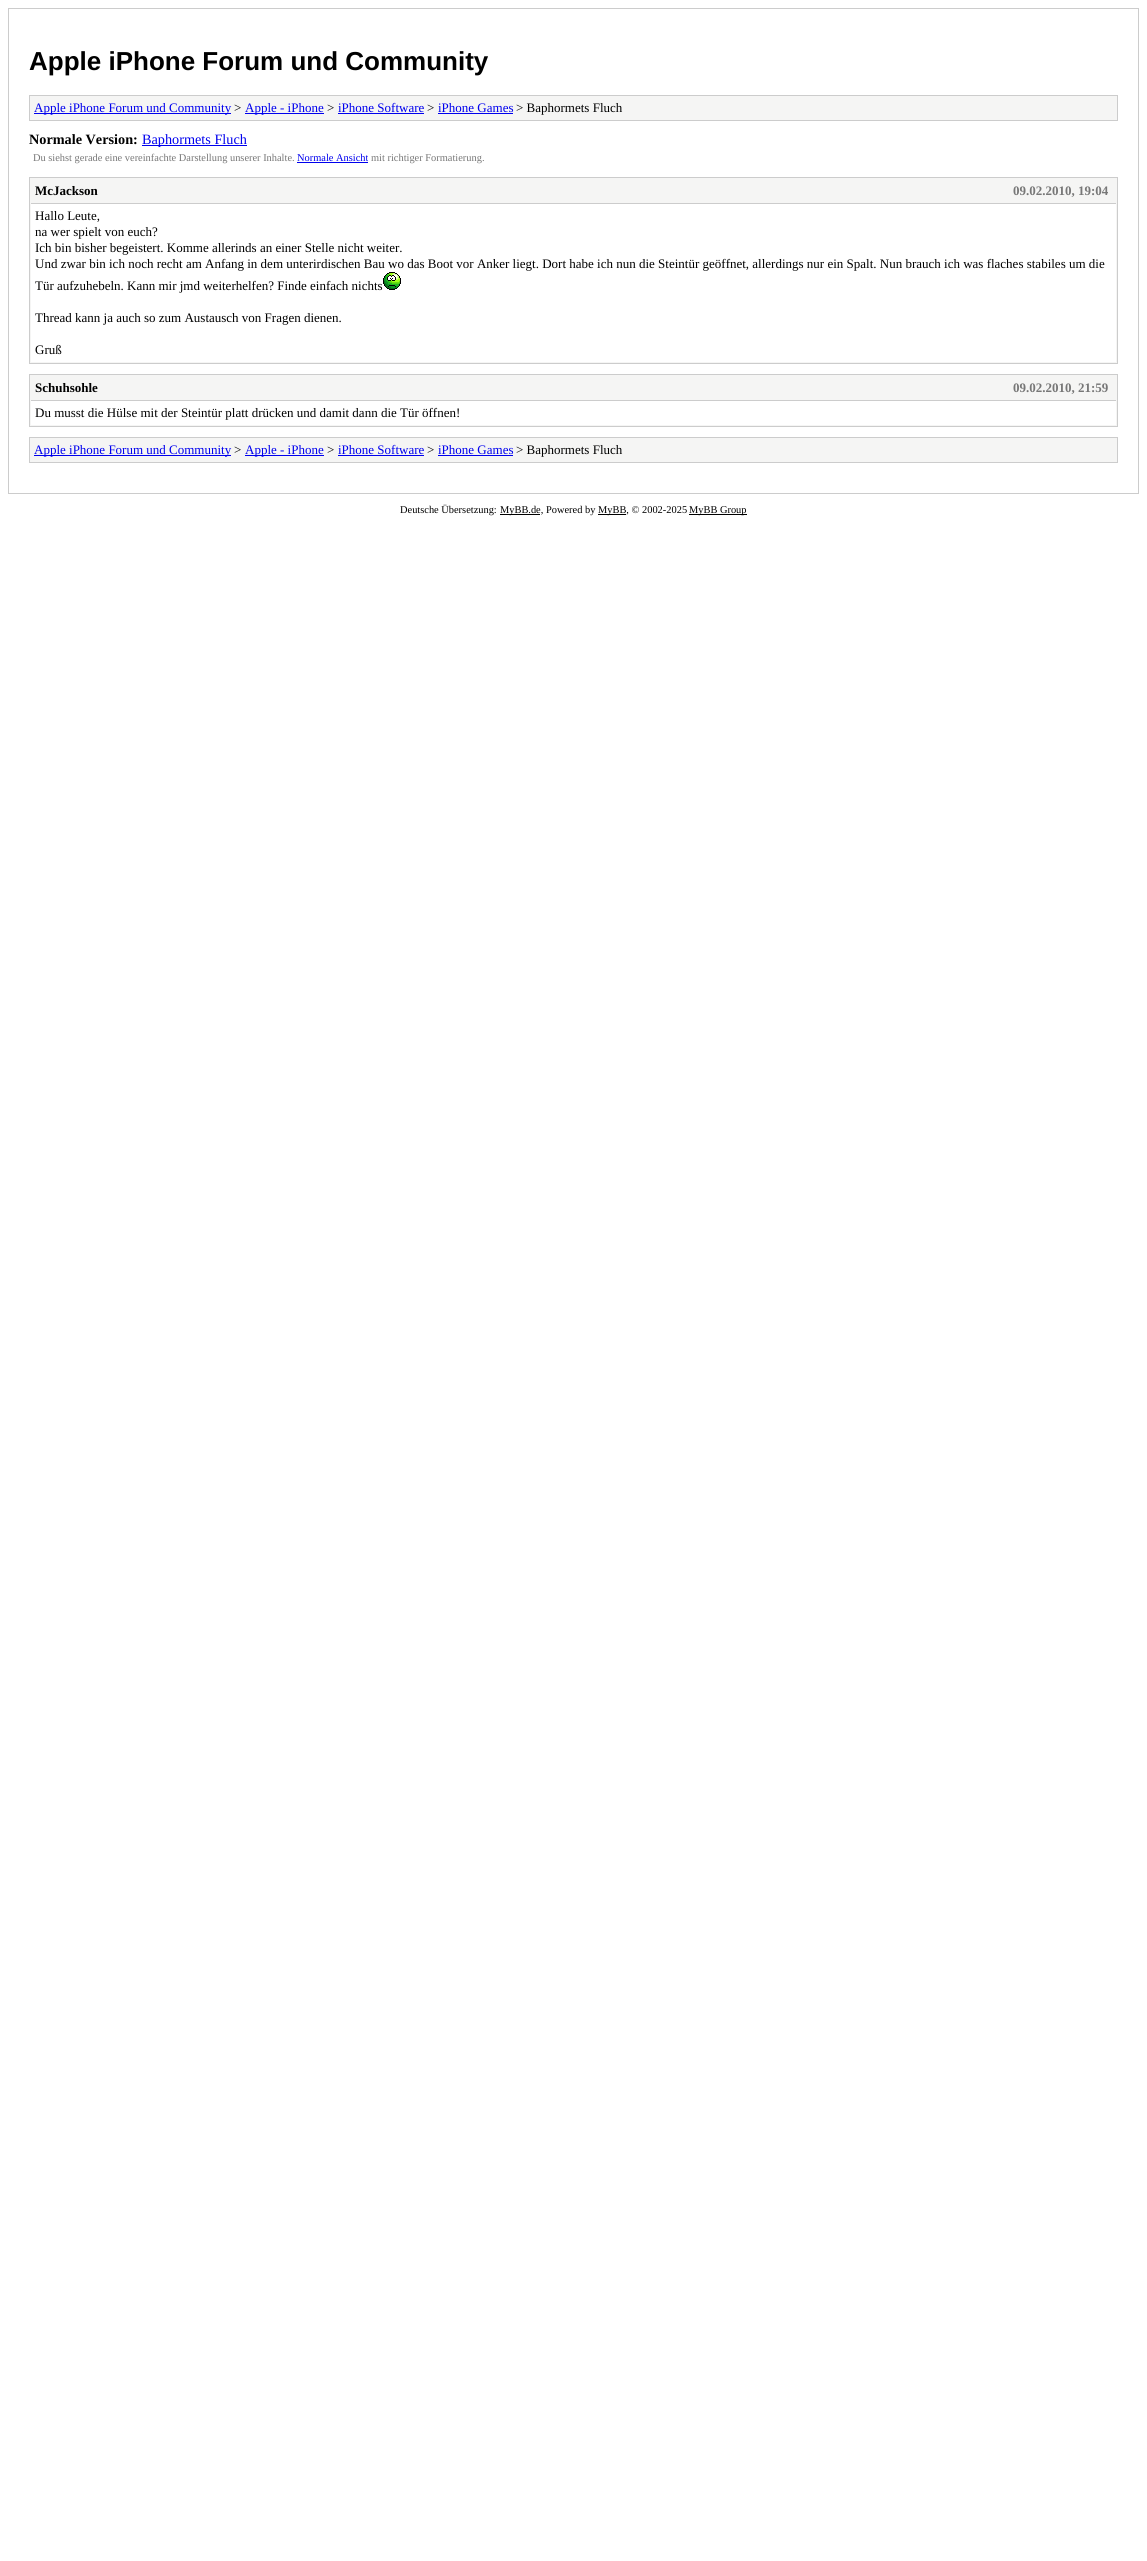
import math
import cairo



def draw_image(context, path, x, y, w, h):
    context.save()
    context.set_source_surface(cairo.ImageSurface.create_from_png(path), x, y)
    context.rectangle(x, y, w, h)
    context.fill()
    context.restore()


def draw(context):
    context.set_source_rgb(1, 1, 1)
    context.paint()
    context.rectangle(8.5, 8.5, 1130, 485)
    context.set_source_rgb(204 / 255, 204 / 255, 204 / 255)
    context.set_line_width(1)
    context.stroke()
    context.set_source_rgb(245 / 255, 245 / 255, 244 / 255)
    context.rectangle(29.5, 95.5, 1088, 25)
    context.fill_preserve()
    context.set_source_rgb(204 / 255, 204 / 255, 204 / 255)
    context.stroke()
    context.set_source_rgb(0, 0, 238 / 255)
    context.rectangle(34, 113, 197, 1)
    context.fill()
    context.rectangle(245, 113, 79, 1)
    context.fill()
    context.rectangle(338, 113, 86, 1)
    context.fill()
    context.rectangle(438, 113, 75, 1)
    context.fill()
    context.rectangle(142, 145, 105, 1)
    context.fill()
    context.rectangle(297, 162, 71, 1)
    context.fill()
    context.set_source_rgb(245 / 255, 245 / 255, 244 / 255)
    context.rectangle(29.5, 177.5, 1088, 186)
    context.fill_preserve()
    context.set_source_rgb(204 / 255, 204 / 255, 204 / 255)
    context.stroke()
    context.rectangle(31, 203, 1085, 1)
    context.fill()
    context.set_source_rgb(1, 1, 1)
    context.rectangle(31, 204, 1085, 158)
    context.fill()
    draw_image(context, "images/1.png", 383, 272, 18, 18)
    context.set_source_rgb(245 / 255, 245 / 255, 244 / 255)
    context.rectangle(29.5, 374.5, 1088, 52)
    context.fill_preserve()
    context.set_source_rgb(204 / 255, 204 / 255, 204 / 255)
    context.stroke()
    context.rectangle(31, 400, 1085, 1)
    context.fill()
    context.set_source_rgb(1, 1, 1)
    context.rectangle(31, 401, 1085, 24)
    context.fill()
    context.set_source_rgb(245 / 255, 245 / 255, 244 / 255)
    context.rectangle(29.5, 437.5, 1088, 25)
    context.fill_preserve()
    context.set_source_rgb(204 / 255, 204 / 255, 204 / 255)
    context.stroke()
    context.set_source_rgb(0, 0, 238 / 255)
    context.rectangle(34, 455, 197, 1)
    context.fill()
    context.rectangle(245, 455, 79, 1)
    context.fill()
    context.rectangle(338, 455, 86, 1)
    context.fill()
    context.rectangle(438, 455, 75, 1)
    context.fill()
    context.set_source_rgb(0, 0, 0)
    context.rectangle(500, 514, 40, 1)
    context.fill()
    context.rectangle(598, 514, 28, 1)
    context.fill()
    context.rectangle(689, 514, 58, 1)
    context.fill()
    context.select_font_face("Liberation Sans", cairo.FontSlant.NORMAL, cairo.FontWeight.BOLD)
    context.set_font_size(26)
    context.move_to(29, 70)
    context.show_text("Apple iPhone Forum und Community")
    context.select_font_face("Liberation Serif")
    context.set_font_size(13)
    context.set_source_rgb(0, 0, 238 / 255)
    context.move_to(34, 112)
    context.show_text("Apple iPhone Forum und Community")
    context.set_source_rgb(0, 0, 0)
    context.move_to(234, 112)
    context.show_text(">")
    context.set_source_rgb(0, 0, 238 / 255)
    context.move_to(245, 112)
    context.show_text("Apple - iPhone")
    context.set_source_rgb(0, 0, 0)
    context.move_to(327, 112)
    context.show_text(">")
    context.set_source_rgb(0, 0, 238 / 255)
    context.move_to(338, 112)
    context.show_text("iPhone Software")
    context.set_source_rgb(0, 0, 0)
    context.move_to(427, 112)
    context.show_text(">")
    context.set_source_rgb(0, 0, 238 / 255)
    context.move_to(438, 112)
    context.show_text("iPhone Games")
    context.set_source_rgb(0, 0, 0)
    context.move_to(516, 112)
    context.show_text("> Baphormets Fluch")
    context.select_font_face("Liberation Serif", cairo.FontSlant.NORMAL, cairo.FontWeight.BOLD)
    context.set_font_size(14.25)
    context.move_to(29, 144)
    context.show_text("Normale Version:")
    context.select_font_face("Liberation Serif")
    context.set_source_rgb(0, 0, 238 / 255)
    context.move_to(142, 144)
    context.show_text("Baphormets Fluch")
    context.set_font_size(10.4)
    context.set_source_rgb(119 / 255, 119 / 255, 119 / 255)
    context.move_to(33, 161)
    context.show_text("Du siehst gerade eine vereinfachte Darstellung unserer Inhalte.")
    context.set_source_rgb(0, 0, 238 / 255)
    context.move_to(297, 161)
    context.show_text("Normale Ansicht")
    context.set_source_rgb(119 / 255, 119 / 255, 119 / 255)
    context.move_to(371, 161)
    context.show_text("mit richtiger Formatierung.")
    context.select_font_face("Liberation Serif", cairo.FontSlant.NORMAL, cairo.FontWeight.BOLD)
    context.set_font_size(13)
    context.set_source_rgb(0, 0, 0)
    context.move_to(35, 195)
    context.show_text("McJackson")
    context.set_source_rgb(119 / 255, 119 / 255, 119 / 255)
    context.move_to(1013, 195)
    context.show_text("09.02.2010, 19:04")
    context.select_font_face("Liberation Serif")
    context.set_source_rgb(0, 0, 0)
    context.move_to(35, 220)
    context.show_text("Hallo Leute,")
    context.move_to(35, 236)
    context.show_text("na wer spielt von euch?")
    context.move_to(35, 252)
    context.show_text("Ich bin bisher begeistert. Komme allerinds an einer Stelle nicht weiter.")
    context.move_to(35, 268)
    context.show_text("Und zwar bin ich noch recht am Anfang in dem unterirdischen Bau wo das Boot vor Anker liegt. Dort habe ich nun die Steintür geöffnet, allerdings nur ein Spalt. Nun brauch ich was flaches stabiles um die")
    context.move_to(35, 290)
    context.show_text("Tür aufzuhebeln. Kann mir jmd weiterhelfen? Finde einfach nichts")
    context.move_to(35, 322)
    context.show_text("Thread kann ja auch so zum Austausch von Fragen dienen.")
    context.move_to(35, 354)
    context.show_text("Gruß")
    context.select_font_face("Liberation Serif", cairo.FontSlant.NORMAL, cairo.FontWeight.BOLD)
    context.move_to(35, 392)
    context.show_text("Schuhsohle")
    context.set_source_rgb(119 / 255, 119 / 255, 119 / 255)
    context.move_to(1013, 392)
    context.show_text("09.02.2010, 21:59")
    context.select_font_face("Liberation Serif")
    context.set_source_rgb(0, 0, 0)
    context.move_to(35, 417)
    context.show_text("Du musst die Hülse mit der Steintür platt drücken und damit dann die Tür öffnen!")
    context.set_source_rgb(0, 0, 238 / 255)
    context.move_to(34, 454)
    context.show_text("Apple iPhone Forum und Community")
    context.set_source_rgb(0, 0, 0)
    context.move_to(234, 454)
    context.show_text(">")
    context.set_source_rgb(0, 0, 238 / 255)
    context.move_to(245, 454)
    context.show_text("Apple - iPhone")
    context.set_source_rgb(0, 0, 0)
    context.move_to(327, 454)
    context.show_text(">")
    context.set_source_rgb(0, 0, 238 / 255)
    context.move_to(338, 454)
    context.show_text("iPhone Software")
    context.set_source_rgb(0, 0, 0)
    context.move_to(427, 454)
    context.show_text(">")
    context.set_source_rgb(0, 0, 238 / 255)
    context.move_to(438, 454)
    context.show_text("iPhone Games")
    context.set_source_rgb(0, 0, 0)
    context.move_to(516, 454)
    context.show_text("> Baphormets Fluch")
    context.set_font_size(10.4)
    context.move_to(400, 513)
    context.show_text("Deutsche Übersetzung:")
    context.move_to(500, 513)
    context.show_text("MyBB.de, Powered by")
    context.move_to(598, 513)
    context.show_text("MyBB, © 2002-2025")
    context.move_to(689, 513)
    context.show_text("MyBB Group")


surface = cairo.ImageSurface(cairo.Format.RGB24, 1147, 2561)
context = cairo.Context(surface)
options = cairo.FontOptions()
options.set_hint_metrics(cairo.HintMetrics.OFF)
options.set_hint_style(cairo.HintStyle.NONE)
context.set_font_options(options)
context.set_miter_limit(4)
draw(context)
surface.write_to_png("out.png")
